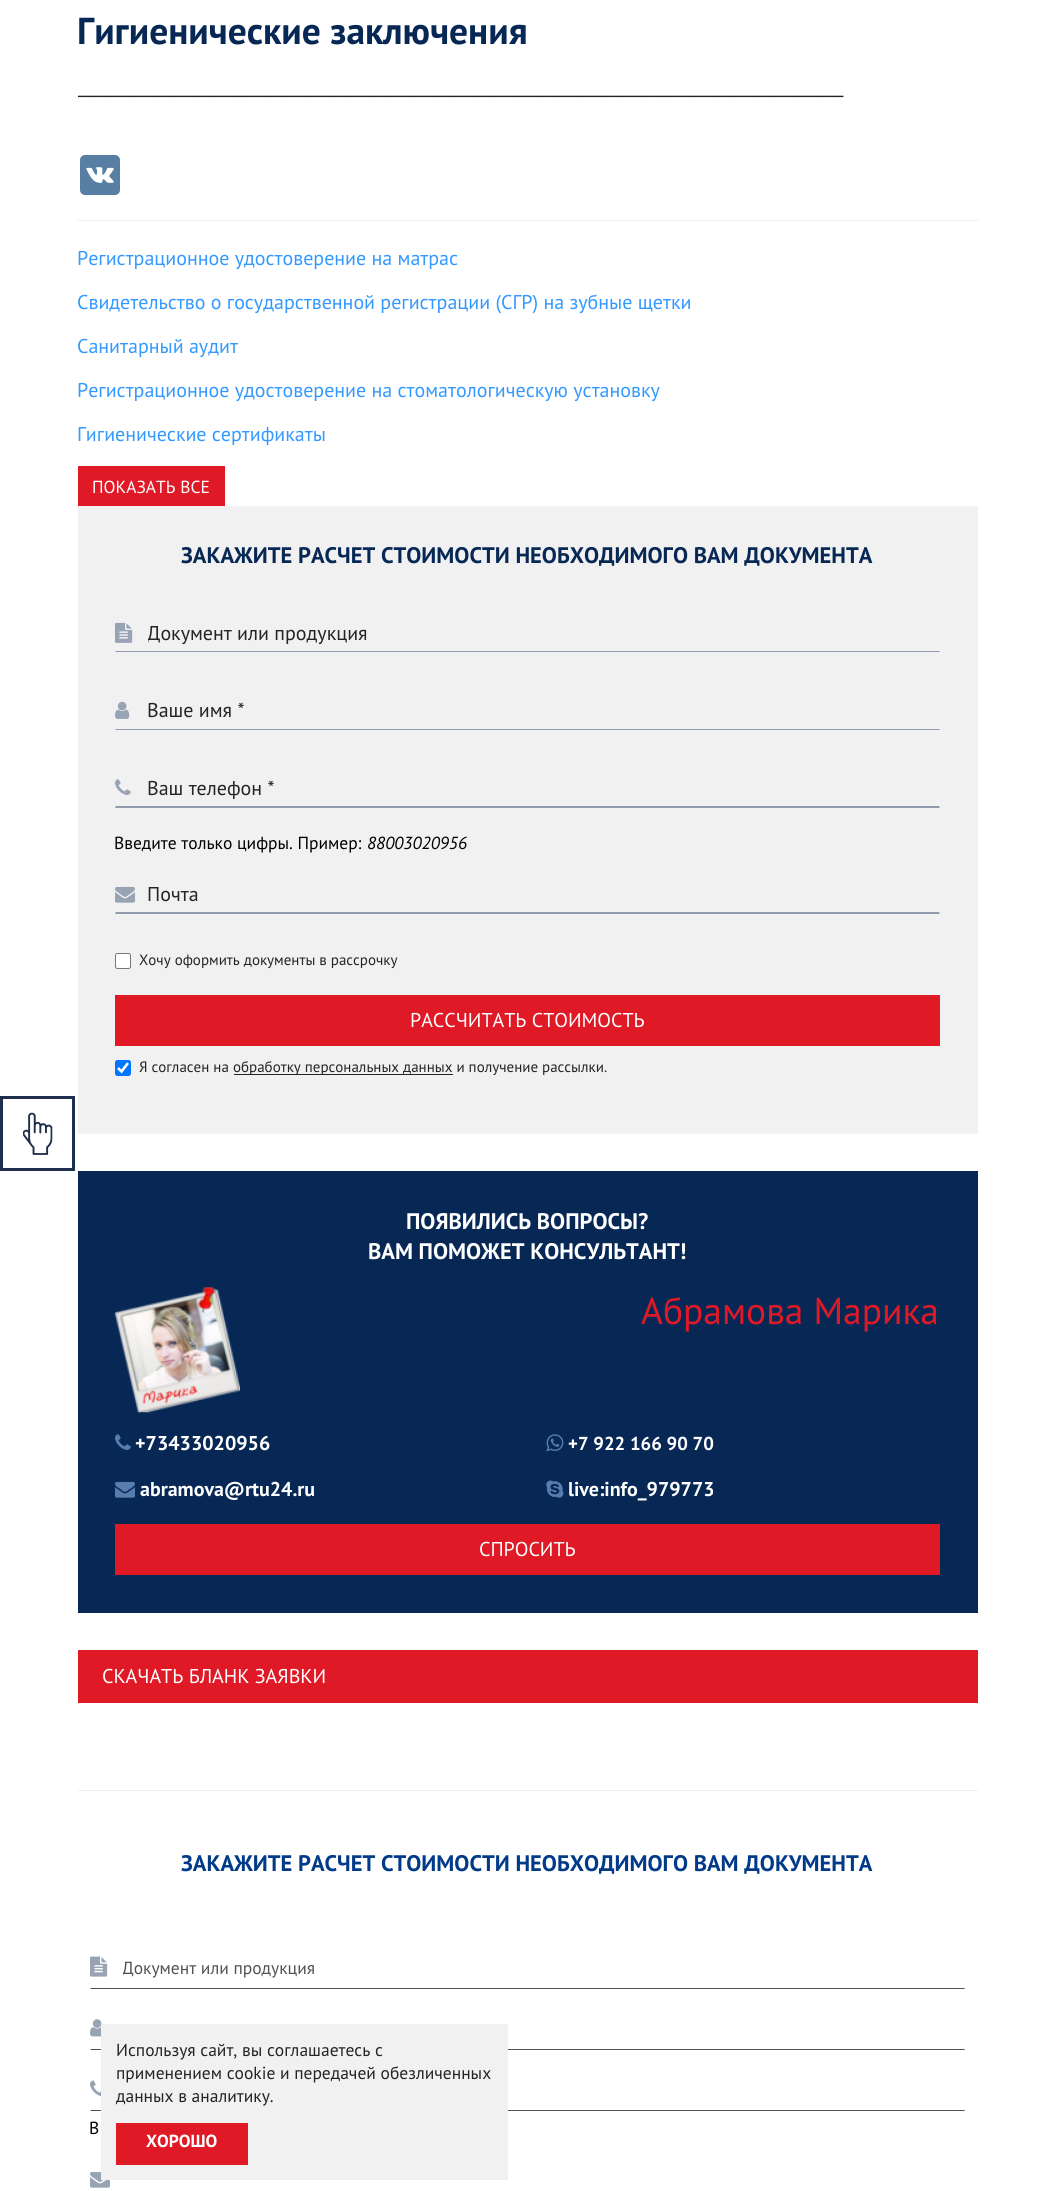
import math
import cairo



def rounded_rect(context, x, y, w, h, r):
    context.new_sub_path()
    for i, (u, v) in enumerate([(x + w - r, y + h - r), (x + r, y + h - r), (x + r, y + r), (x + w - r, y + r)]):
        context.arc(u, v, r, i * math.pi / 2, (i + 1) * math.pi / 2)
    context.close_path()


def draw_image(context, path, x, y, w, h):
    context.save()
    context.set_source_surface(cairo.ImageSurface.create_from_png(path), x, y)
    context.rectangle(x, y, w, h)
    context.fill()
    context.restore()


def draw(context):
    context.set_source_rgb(1, 1, 1)
    context.paint()
    context.rectangle(1.5, 1097.5, 72, 72)
    context.set_source_rgb(29 / 255, 47 / 255, 77 / 255)
    context.set_line_width(3)
    context.stroke()
    draw_image(context, "images/1.png", 23, 1112, 30, 43)
    context.set_source_rgb(88 / 255, 126 / 255, 163 / 255)
    rounded_rect(context, 80, 155, 40, 40, 5)
    context.fill()
    draw_image(context, "images/2.png", 86, 167, 28, 16)
    context.set_source_rgb(238 / 255, 238 / 255, 238 / 255)
    context.rectangle(78, 220, 900, 1)
    context.fill()
    context.set_source_rgb(224 / 255, 25 / 255, 38 / 255)
    context.rectangle(78, 466, 147, 40)
    context.fill()
    context.set_source_rgb(241 / 255, 241 / 255, 241 / 255)
    context.rectangle(78, 506, 900, 628)
    context.fill()
    draw_image(context, "images/3.png", 115, 622, 18, 21)
    context.set_source_rgb(144 / 255, 156 / 255, 173 / 255)
    context.new_path()
    context.move_to(940, 652)
    context.line_to(115, 652)
    context.line_to(116, 651)
    context.line_to(939, 651)
    context.close_path()
    context.fill()
    draw_image(context, "images/4.png", 115, 701, 15, 18)
    context.new_path()
    context.move_to(940, 730)
    context.line_to(115, 730)
    context.line_to(116, 729)
    context.line_to(939, 729)
    context.close_path()
    context.fill()
    draw_image(context, "images/5.png", 115, 779, 16, 16)
    context.new_path()
    context.move_to(940, 808)
    context.line_to(115, 808)
    context.line_to(116, 806)
    context.line_to(939, 806)
    context.close_path()
    context.fill()
    draw_image(context, "images/6.png", 115, 886, 20, 17)
    context.new_path()
    context.move_to(940, 914)
    context.line_to(115, 914)
    context.line_to(116, 912)
    context.line_to(939, 912)
    context.close_path()
    context.fill()
    context.set_source_rgb(1, 1, 1)
    rounded_rect(context, 115.5, 953.5, 15, 15, 2)
    context.fill_preserve()
    context.set_source_rgb(118 / 255, 118 / 255, 118 / 255)
    context.set_line_width(1)
    context.stroke()
    context.set_source_rgb(224 / 255, 25 / 255, 38 / 255)
    context.rectangle(115, 995, 825, 51)
    context.fill()
    context.set_source_rgb(0, 117 / 255, 1)
    rounded_rect(context, 115, 1060, 16, 16, 2.5)
    context.fill()
    context.new_path()
    context.move_to(118, 1068)
    context.line_to(121.5, 1071.5)
    context.line_to(128, 1063)
    context.set_source_rgb(1, 1, 1)
    context.set_line_width(2.6)
    context.stroke()
    context.set_source_rgb(36 / 255, 36 / 255, 36 / 255)
    context.rectangle(234, 1074, 219, 1)
    context.fill()
    context.set_source_rgb(7 / 255, 40 / 255, 85 / 255)
    context.rectangle(78, 1171, 900, 442)
    context.fill()
    draw_image(context, "images/7.png", 114, 1287, 126, 126)
    draw_image(context, "images/8.png", 115, 1434, 16, 16)
    draw_image(context, "images/9.png", 115, 1481, 20, 17)
    draw_image(context, "images/10.png", 546, 1434, 18, 18)
    draw_image(context, "images/11.png", 546, 1480, 18, 18)
    context.set_source_rgb(224 / 255, 25 / 255, 38 / 255)
    context.rectangle(115, 1524, 825, 51)
    context.fill()
    context.rectangle(78, 1650, 900, 53)
    context.fill()
    context.set_source_rgb(237 / 255, 239 / 255, 242 / 255)
    context.rectangle(78, 1790, 900, 1)
    context.fill()
    draw_image(context, "images/12.png", 90, 1956, 18, 21)
    context.set_source_rgb(82 / 255, 82 / 255, 82 / 255)
    context.new_path()
    context.move_to(965, 1989)
    context.line_to(90, 1989)
    context.line_to(91, 1988)
    context.line_to(964, 1988)
    context.close_path()
    context.fill()
    draw_image(context, "images/13.png", 90, 2019, 12, 18)
    context.new_path()
    context.move_to(965, 2050)
    context.line_to(90, 2050)
    context.line_to(91, 2049)
    context.line_to(964, 2049)
    context.close_path()
    context.fill()
    draw_image(context, "images/14.png", 90, 2080, 11, 17)
    context.new_path()
    context.move_to(965, 2111)
    context.line_to(90, 2111)
    context.line_to(91, 2110)
    context.line_to(964, 2110)
    context.close_path()
    context.fill()
    draw_image(context, "images/15.png", 90, 2171, 20, 17)
    context.set_source_rgb(241 / 255, 241 / 255, 241 / 255)
    context.rectangle(101, 2024, 407, 156)
    context.fill()
    context.set_source_rgb(224 / 255, 25 / 255, 38 / 255)
    context.rectangle(116, 2123, 132, 42)
    context.fill()
    context.select_font_face("PT Sans", cairo.FontSlant.NORMAL, cairo.FontWeight.BOLD)
    context.set_font_size(37.5)
    context.set_source_rgb(7 / 255, 40 / 255, 85 / 255)
    context.move_to(77, 44)
    context.show_text("Гигиенические заключения")
    context.save()
    context.rectangle(78, 14, 900, 104)
    context.clip()
    context.select_font_face("PT Sans")
    context.set_font_size(20)
    context.set_source_rgb(36 / 255, 36 / 255, 36 / 255)
    context.move_to(77, 93)
    context.show_text("______________________________________________________________________________________________")
    context.restore()
    context.select_font_face("PT Sans")
    context.set_font_size(20)
    context.set_source_rgb(51 / 255, 153 / 255, 1)
    context.move_to(77, 265)
    context.show_text("Регистрационное удостоверение на матрас")
    context.move_to(77, 309)
    context.show_text("Свидетельство о государственной регистрации (СГР) на зубные щетки")
    context.move_to(77, 353)
    context.show_text("Санитарный аудит")
    context.move_to(77, 397)
    context.show_text("Регистрационное удостоверение на стоматологическую установку")
    context.move_to(77, 441)
    context.show_text("Гигиенические сертификаты")
    context.set_font_size(17.5)
    context.set_source_rgb(1, 1, 1)
    context.move_to(92, 493)
    context.show_text("ПОКАЗАТЬ ВСЕ")
    context.select_font_face("PT Sans", cairo.FontSlant.NORMAL, cairo.FontWeight.BOLD)
    context.set_font_size(22.5)
    context.set_source_rgb(7 / 255, 40 / 255, 85 / 255)
    context.move_to(181, 563)
    context.show_text("ЗАКАЖИТЕ РАСЧЕТ СТОИМОСТИ НЕОБХОДИМОГО ВАМ ДОКУМЕНТА")
    context.save()
    context.rectangle(148, 620, 785, 25)
    context.clip()
    context.select_font_face("PT Sans")
    context.set_font_size(20)
    context.set_source_rgb(36 / 255, 36 / 255, 36 / 255)
    context.move_to(147, 640)
    context.show_text("Документ или продукция")
    context.restore()
    context.select_font_face("PT Sans")
    context.set_font_size(20)
    context.set_source_rgb(36 / 255, 36 / 255, 36 / 255)
    context.move_to(147, 717)
    context.show_text("Ваше имя *")
    context.move_to(147, 795)
    context.show_text("Ваш телефон *")
    context.set_font_size(17.5)
    context.set_source_rgb(0, 0, 0)
    context.move_to(114, 849)
    context.show_text("Введите только цифры. Пример:")
    context.select_font_face("PT Sans", cairo.FontSlant.ITALIC)
    context.move_to(367, 849)
    context.show_text("88003020956")
    context.select_font_face("PT Sans")
    context.set_font_size(20)
    context.set_source_rgb(36 / 255, 36 / 255, 36 / 255)
    context.move_to(147, 901)
    context.show_text("Почта")
    context.set_font_size(15)
    context.move_to(139, 965)
    context.show_text("Хочу оформить документы в рассрочку")
    context.set_font_size(20)
    context.set_source_rgb(1, 1, 1)
    context.move_to(410, 1027)
    context.show_text("РАССЧИТАТЬ СТОИМОСТЬ")
    context.set_font_size(15)
    context.set_source_rgb(36 / 255, 36 / 255, 36 / 255)
    context.move_to(139, 1072)
    context.show_text("Я согласен на")
    context.move_to(233, 1072)
    context.show_text("обработку персональных данных и получение рассылки.")
    context.select_font_face("PT Sans", cairo.FontSlant.NORMAL, cairo.FontWeight.BOLD)
    context.set_font_size(22.5)
    context.set_source_rgb(1, 1, 1)
    context.move_to(406, 1229)
    context.show_text("ПОЯВИЛИСЬ ВОПРОСЫ?")
    context.move_to(368, 1259)
    context.show_text("ВАМ ПОМОЖЕТ КОНСУЛЬТАНТ!")
    context.select_font_face("PT Sans")
    context.set_font_size(37.5)
    context.set_source_rgb(224 / 255, 25 / 255, 38 / 255)
    context.move_to(641, 1324)
    context.show_text("Абрамова Марика")
    context.select_font_face("PT Sans", cairo.FontSlant.NORMAL, cairo.FontWeight.BOLD)
    context.set_font_size(20)
    context.set_source_rgb(1, 1, 1)
    context.move_to(135, 1450)
    context.show_text("+73433020956")
    context.move_to(140, 1496)
    context.show_text("abramova@rtu24.ru")
    context.set_font_size(18.75)
    context.move_to(568, 1450)
    context.show_text("+7 922 166 90 70")
    context.set_font_size(20)
    context.move_to(568, 1496)
    context.show_text("live:info_979773")
    context.select_font_face("PT Sans")
    context.move_to(479, 1556)
    context.show_text("СПРОСИТЬ")
    context.move_to(102, 1683)
    context.show_text("СКАЧАТЬ БЛАНК ЗАЯВКИ")
    context.select_font_face("PT Sans", cairo.FontSlant.NORMAL, cairo.FontWeight.BOLD)
    context.set_font_size(22.5)
    context.set_source_rgb(1 / 255, 58 / 255, 136 / 255)
    context.move_to(181, 1871)
    context.show_text("ЗАКАЖИТЕ РАСЧЕТ СТОИМОСТИ НЕОБХОДИМОГО ВАМ ДОКУМЕНТА")
    context.save()
    context.rectangle(123, 1956, 835, 23)
    context.clip()
    context.select_font_face("PT Sans")
    context.set_font_size(17.5)
    context.set_source_rgb(82 / 255, 82 / 255, 82 / 255)
    context.move_to(122, 1974)
    context.show_text("Документ или продукция")
    context.restore()
    context.select_font_face("PT Sans")
    context.set_font_size(17.5)
    context.set_source_rgb(0, 0, 0)
    context.move_to(89, 2134)
    context.show_text("В")
    context.set_source_rgb(36 / 255, 36 / 255, 36 / 255)
    context.move_to(116, 2056)
    context.show_text("Используя сайт, вы соглашаетесь с")
    context.move_to(116, 2079)
    context.show_text("применением cookie и передачей обезличенных")
    context.move_to(116, 2102)
    context.show_text("данных в аналитику.")
    context.select_font_face("PT Sans", cairo.FontSlant.NORMAL, cairo.FontWeight.BOLD)
    context.set_source_rgb(1, 1, 1)
    context.move_to(146, 2147)
    context.show_text("ХОРОШО")


surface = cairo.ImageSurface(cairo.Format.RGB24, 1053, 2191)
context = cairo.Context(surface)
options = cairo.FontOptions()
options.set_hint_metrics(cairo.HintMetrics.OFF)
options.set_hint_style(cairo.HintStyle.NONE)
context.set_font_options(options)
context.set_miter_limit(4)
draw(context)
surface.write_to_png("out.png")
